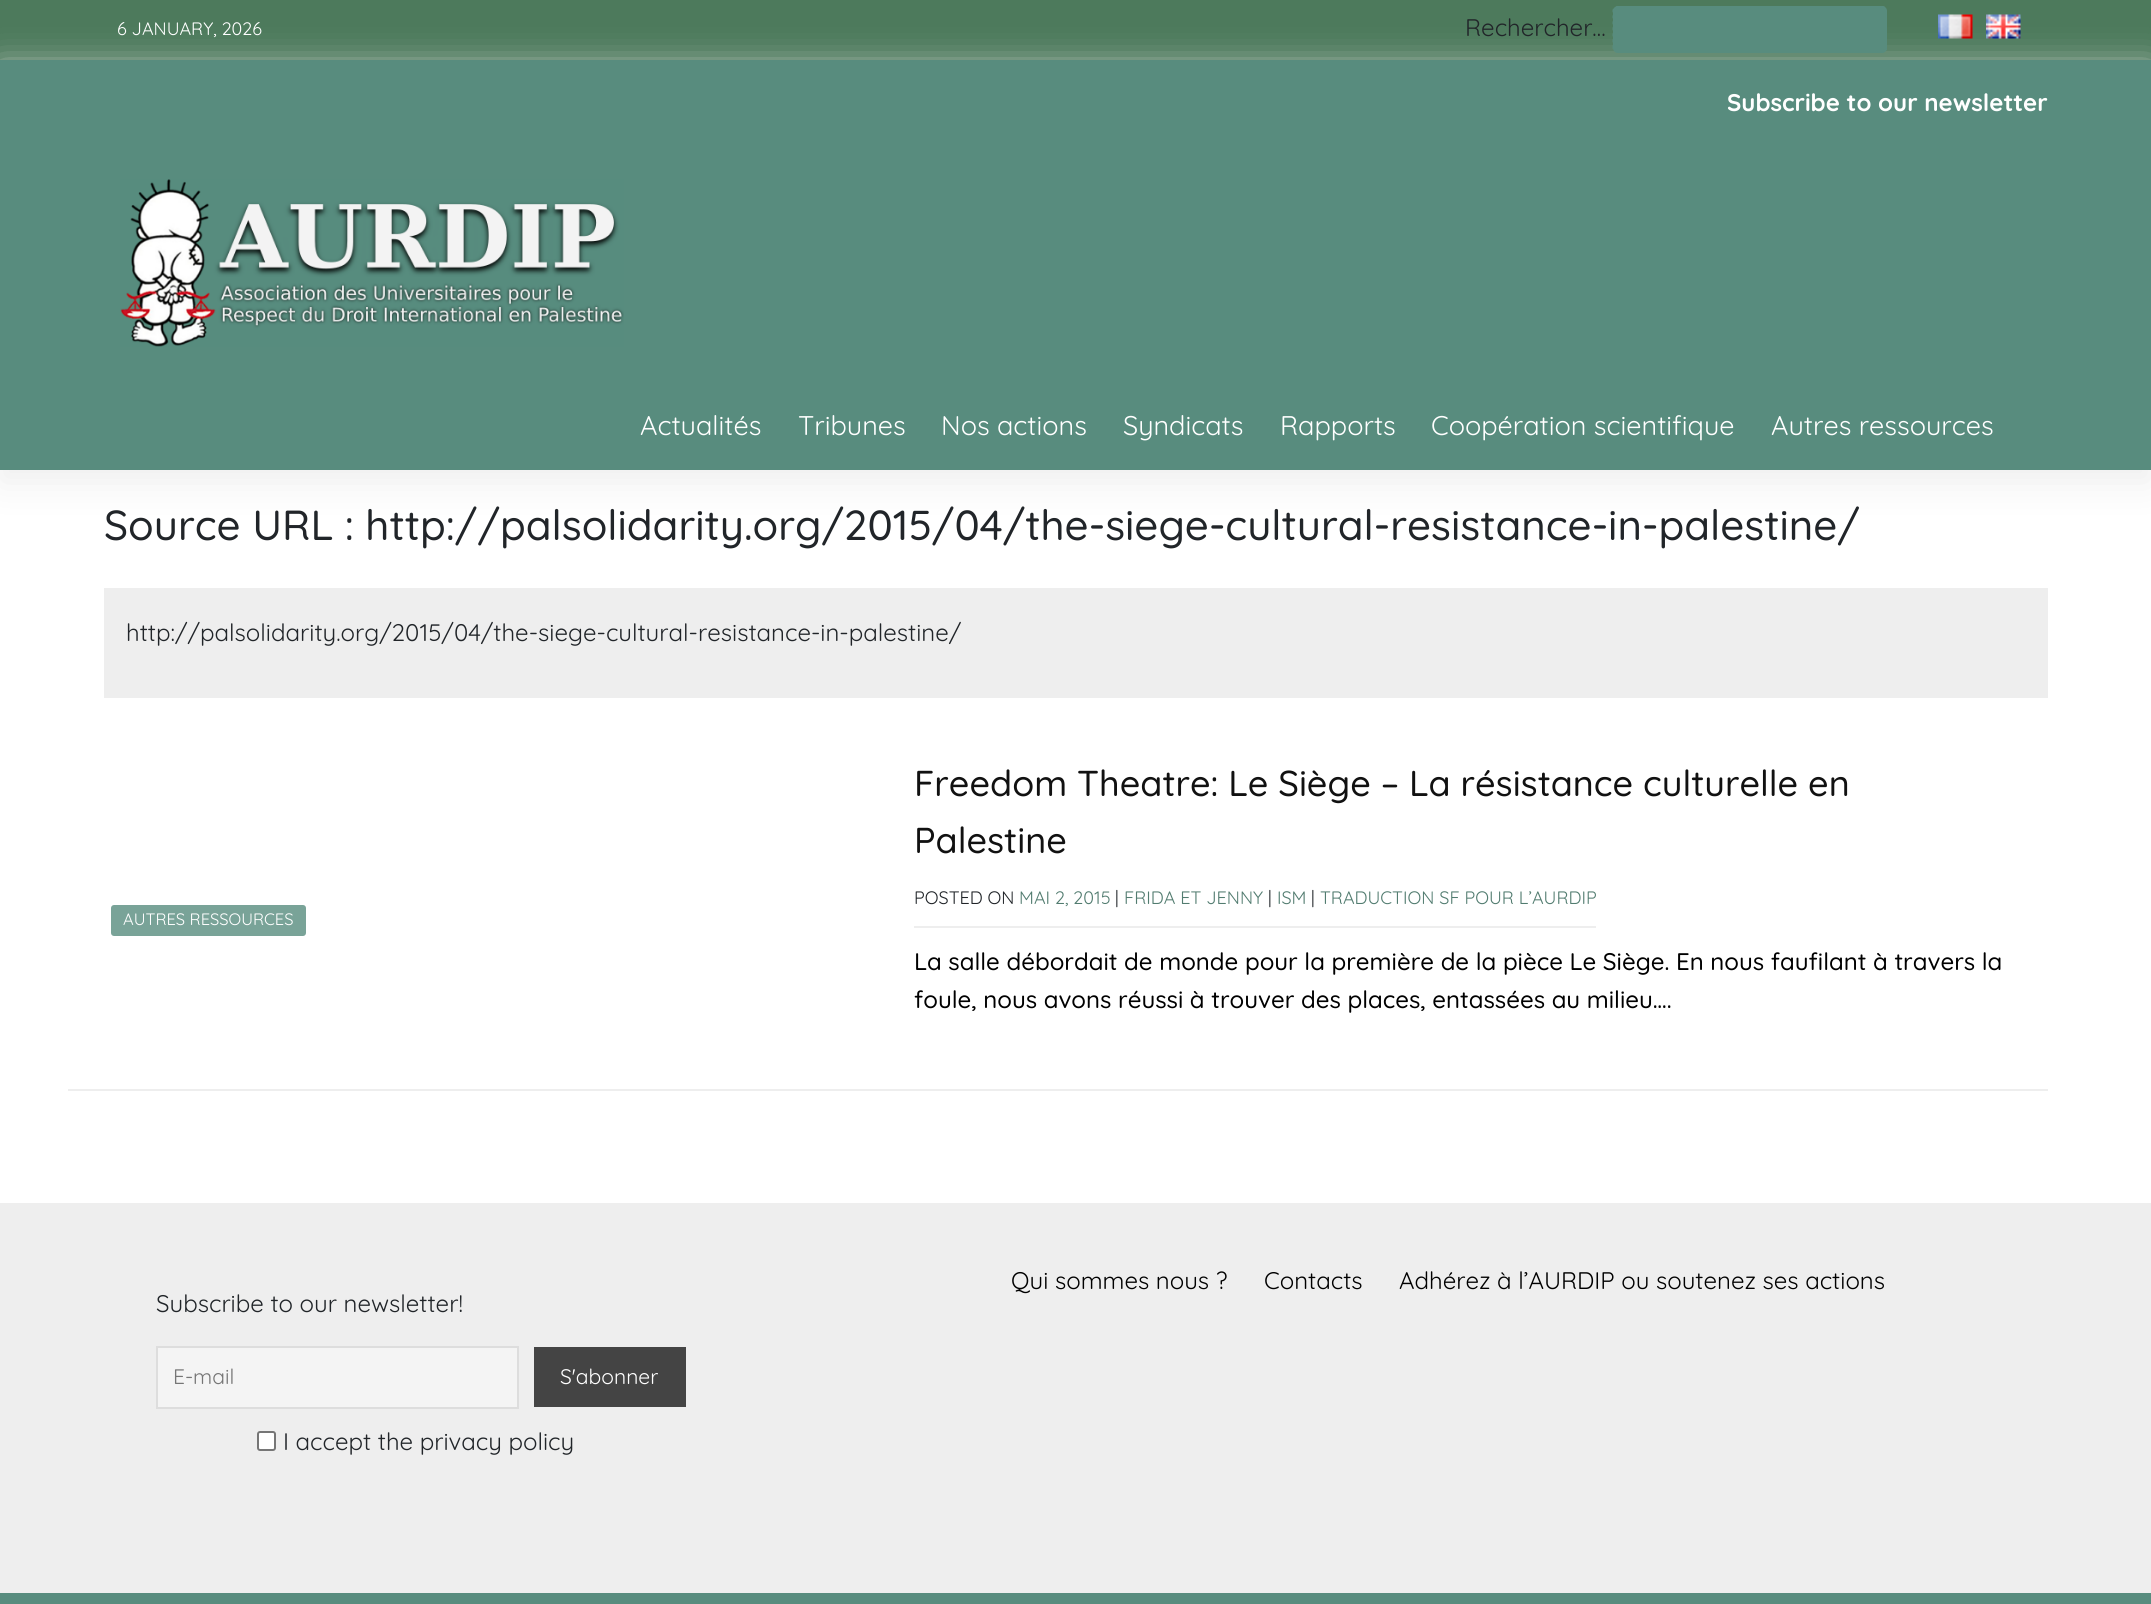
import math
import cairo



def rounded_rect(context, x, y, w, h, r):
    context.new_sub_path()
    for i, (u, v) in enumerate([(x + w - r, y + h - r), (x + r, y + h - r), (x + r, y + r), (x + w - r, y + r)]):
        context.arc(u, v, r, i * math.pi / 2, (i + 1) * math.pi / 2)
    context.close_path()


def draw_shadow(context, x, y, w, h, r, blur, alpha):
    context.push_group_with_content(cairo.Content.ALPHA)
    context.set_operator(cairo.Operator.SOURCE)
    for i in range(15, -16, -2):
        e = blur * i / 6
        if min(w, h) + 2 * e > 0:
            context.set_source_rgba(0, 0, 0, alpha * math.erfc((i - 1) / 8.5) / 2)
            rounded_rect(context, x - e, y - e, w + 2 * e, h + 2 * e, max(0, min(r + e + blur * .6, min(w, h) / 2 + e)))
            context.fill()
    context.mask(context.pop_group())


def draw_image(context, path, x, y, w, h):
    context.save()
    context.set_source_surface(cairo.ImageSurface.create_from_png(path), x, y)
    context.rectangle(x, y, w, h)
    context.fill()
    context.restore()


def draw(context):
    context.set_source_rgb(1, 1, 1)
    context.paint()
    context.set_source_rgb(77 / 255, 122 / 255, 92 / 255)
    context.rectangle(0, 0, 2151, 60)
    context.fill()
    context.set_source_rgb(238 / 255, 238 / 255, 238 / 255)
    draw_shadow(context, 0, 72, 2151, 410, 0, 18, 1)
    context.set_source_rgb(88 / 255, 140 / 255, 126 / 255)
    rounded_rect(context, 1613, 6, 274, 47, 5)
    context.fill()
    context.new_path()
    context.move_to(1617, 7.5)
    context.line_to(1882.5, 7.5)
    context.curve_to(1884, 7.5, 1885.5, 9, 1885.5, 10.5)
    context.line_to(1885.5, 48)
    context.curve_to(1885.5, 49.5, 1884, 51, 1882.5, 51)
    context.line_to(1617, 51)
    context.curve_to(1615.5, 51, 1614, 49.5, 1614, 48)
    context.line_to(1614, 10.5)
    context.curve_to(1614, 9, 1615.5, 7.5, 1617, 7.5)
    context.close_path()
    context.set_line_width(3)
    context.set_dash([3, 3])
    context.stroke()
    draw_image(context, "images/1.png", 1938, 14, 35, 25)
    draw_image(context, "images/2.png", 1986, 14, 35, 25)
    context.rectangle(0, 60, 2151, 410)
    context.fill()
    draw_image(context, "images/3.png", 120, 179, 504, 168)
    context.set_source_rgb(238 / 255, 238 / 255, 238 / 255)
    context.rectangle(104, 588, 1944, 110)
    context.fill()
    context.rectangle(68, 1089, 1980, 2)
    context.fill()
    context.set_source_rgb(121 / 255, 163 / 255, 152 / 255)
    rounded_rect(context, 111, 905, 195, 31, 3)
    context.fill()
    context.set_source_rgb(238 / 255, 238 / 255, 238 / 255)
    context.rectangle(914, 926, 682, 2)
    context.fill()
    context.rectangle(0, 1203, 2151, 390)
    context.fill()
    context.set_source_rgb(244 / 255, 244 / 255, 244 / 255)
    context.rectangle(157, 1347, 361, 61)
    context.fill_preserve()
    context.set_source_rgb(221 / 255, 221 / 255, 221 / 255)
    context.set_line_width(2)
    context.set_dash([])
    context.stroke()
    context.set_source_rgb(68 / 255, 68 / 255, 68 / 255)
    context.rectangle(534, 1347, 152, 60)
    context.fill()
    context.set_source_rgb(1, 1, 1)
    rounded_rect(context, 258, 1432, 17, 18, 2)
    context.fill_preserve()
    context.set_source_rgb(118 / 255, 118 / 255, 118 / 255)
    context.stroke()
    context.set_source_rgb(88 / 255, 140 / 255, 126 / 255)
    context.rectangle(0, 1593, 2151, 11)
    context.fill()
    context.select_font_face("Quicksand")
    context.set_font_size(18)
    context.set_source_rgb(1, 1, 1)
    context.move_to(117, 35)
    context.show_text("6 JANUARY, 2026")
    context.set_font_size(24)
    context.set_source_rgb(33 / 255, 37 / 255, 41 / 255)
    context.move_to(1465, 36)
    context.show_text("Rechercher…")
    context.select_font_face("Quicksand", cairo.FontSlant.NORMAL, cairo.FontWeight.BOLD)
    context.set_source_rgb(1, 1, 1)
    context.move_to(1727, 111)
    context.show_text("Subscribe to our newsletter")
    context.select_font_face("Quicksand")
    context.set_font_size(27)
    context.move_to(640, 435)
    context.show_text("Actualités")
    context.move_to(798, 435)
    context.show_text("Tribunes")
    context.move_to(941, 435)
    context.show_text("Nos actions")
    context.move_to(1123, 435)
    context.show_text("Syndicats")
    context.move_to(1280, 435)
    context.show_text("Rapports")
    context.move_to(1431, 435)
    context.show_text("Coopération scientifique")
    context.move_to(1771, 435)
    context.show_text("Autres ressources")
    context.select_font_face("Quicksand Medium")
    context.set_font_size(42)
    context.set_source_rgb(33 / 255, 37 / 255, 41 / 255)
    context.move_to(104, 540)
    context.show_text("Source URL : http://palsolidarity.org/2015/04/the-siege-cultural-resistance-in-palestine/")
    context.select_font_face("Quicksand")
    context.set_font_size(24)
    context.move_to(126, 641)
    context.show_text("http://palsolidarity.org/2015/04/the-siege-cultural-resistance-in-palestine/")
    context.set_font_size(16.5)
    context.set_source_rgb(1, 1, 1)
    context.move_to(123, 925)
    context.show_text("AUTRES RESSOURCES")
    context.select_font_face("Quicksand Medium")
    context.set_font_size(36)
    context.set_source_rgb(17 / 255, 17 / 255, 17 / 255)
    context.move_to(914, 796)
    context.show_text("Freedom Theatre: Le Siège – La résistance culturelle en")
    context.move_to(914, 853)
    context.show_text("Palestine")
    context.select_font_face("Quicksand")
    context.set_font_size(18)
    context.set_source_rgb(33 / 255, 37 / 255, 41 / 255)
    context.move_to(914, 904)
    context.show_text("POSTED ON")
    context.set_source_rgb(82 / 255, 124 / 255, 112 / 255)
    context.move_to(1019, 904)
    context.show_text("MAI 2, 2015")
    context.set_source_rgb(33 / 255, 37 / 255, 41 / 255)
    context.move_to(1115, 904)
    context.show_text("|")
    context.set_source_rgb(82 / 255, 124 / 255, 112 / 255)
    context.move_to(1124, 904)
    context.show_text("FRIDA ET JENNY")
    context.set_source_rgb(33 / 255, 37 / 255, 41 / 255)
    context.move_to(1268, 904)
    context.show_text("|")
    context.set_source_rgb(82 / 255, 124 / 255, 112 / 255)
    context.move_to(1277, 904)
    context.show_text("ISM")
    context.set_source_rgb(33 / 255, 37 / 255, 41 / 255)
    context.move_to(1311, 904)
    context.show_text("|")
    context.set_source_rgb(82 / 255, 124 / 255, 112 / 255)
    context.move_to(1320, 904)
    context.show_text("TRADUCTION SF POUR L’AURDIP")
    context.select_font_face("Quicksand Medium")
    context.set_font_size(24)
    context.set_source_rgb(0, 0, 0)
    context.move_to(914, 970)
    context.show_text("La salle débordait de monde pour la première de la pièce Le Siège. En nous faufilant à travers la")
    context.move_to(914, 1008)
    context.show_text("foule, nous avons réussi à trouver des places, entassées au milieu….")
    context.select_font_face("Quicksand")
    context.move_to(1011, 1289)
    context.show_text("Qui sommes nous ?")
    context.move_to(1264, 1289)
    context.show_text("Contacts")
    context.move_to(1399, 1289)
    context.show_text("Adhérez à l’AURDIP ou soutenez ses actions")
    context.set_source_rgb(33 / 255, 37 / 255, 41 / 255)
    context.move_to(156, 1312)
    context.show_text("Subscribe to our newsletter!")
    context.set_font_size(21)
    context.set_source_rgb(117 / 255, 117 / 255, 117 / 255)
    context.move_to(173, 1384)
    context.show_text("E-mail")
    context.set_source_rgb(1, 1, 1)
    context.move_to(560, 1384)
    context.show_text("S'abonner")
    context.set_font_size(24)
    context.set_source_rgb(33 / 255, 37 / 255, 41 / 255)
    context.move_to(283, 1450)
    context.show_text("I accept the privacy policy")


surface = cairo.ImageSurface(cairo.Format.RGB24, 2151, 1604)
context = cairo.Context(surface)
options = cairo.FontOptions()
options.set_hint_metrics(cairo.HintMetrics.OFF)
options.set_hint_style(cairo.HintStyle.NONE)
context.set_font_options(options)
context.set_miter_limit(4)
draw(context)
surface.write_to_png("out.png")
